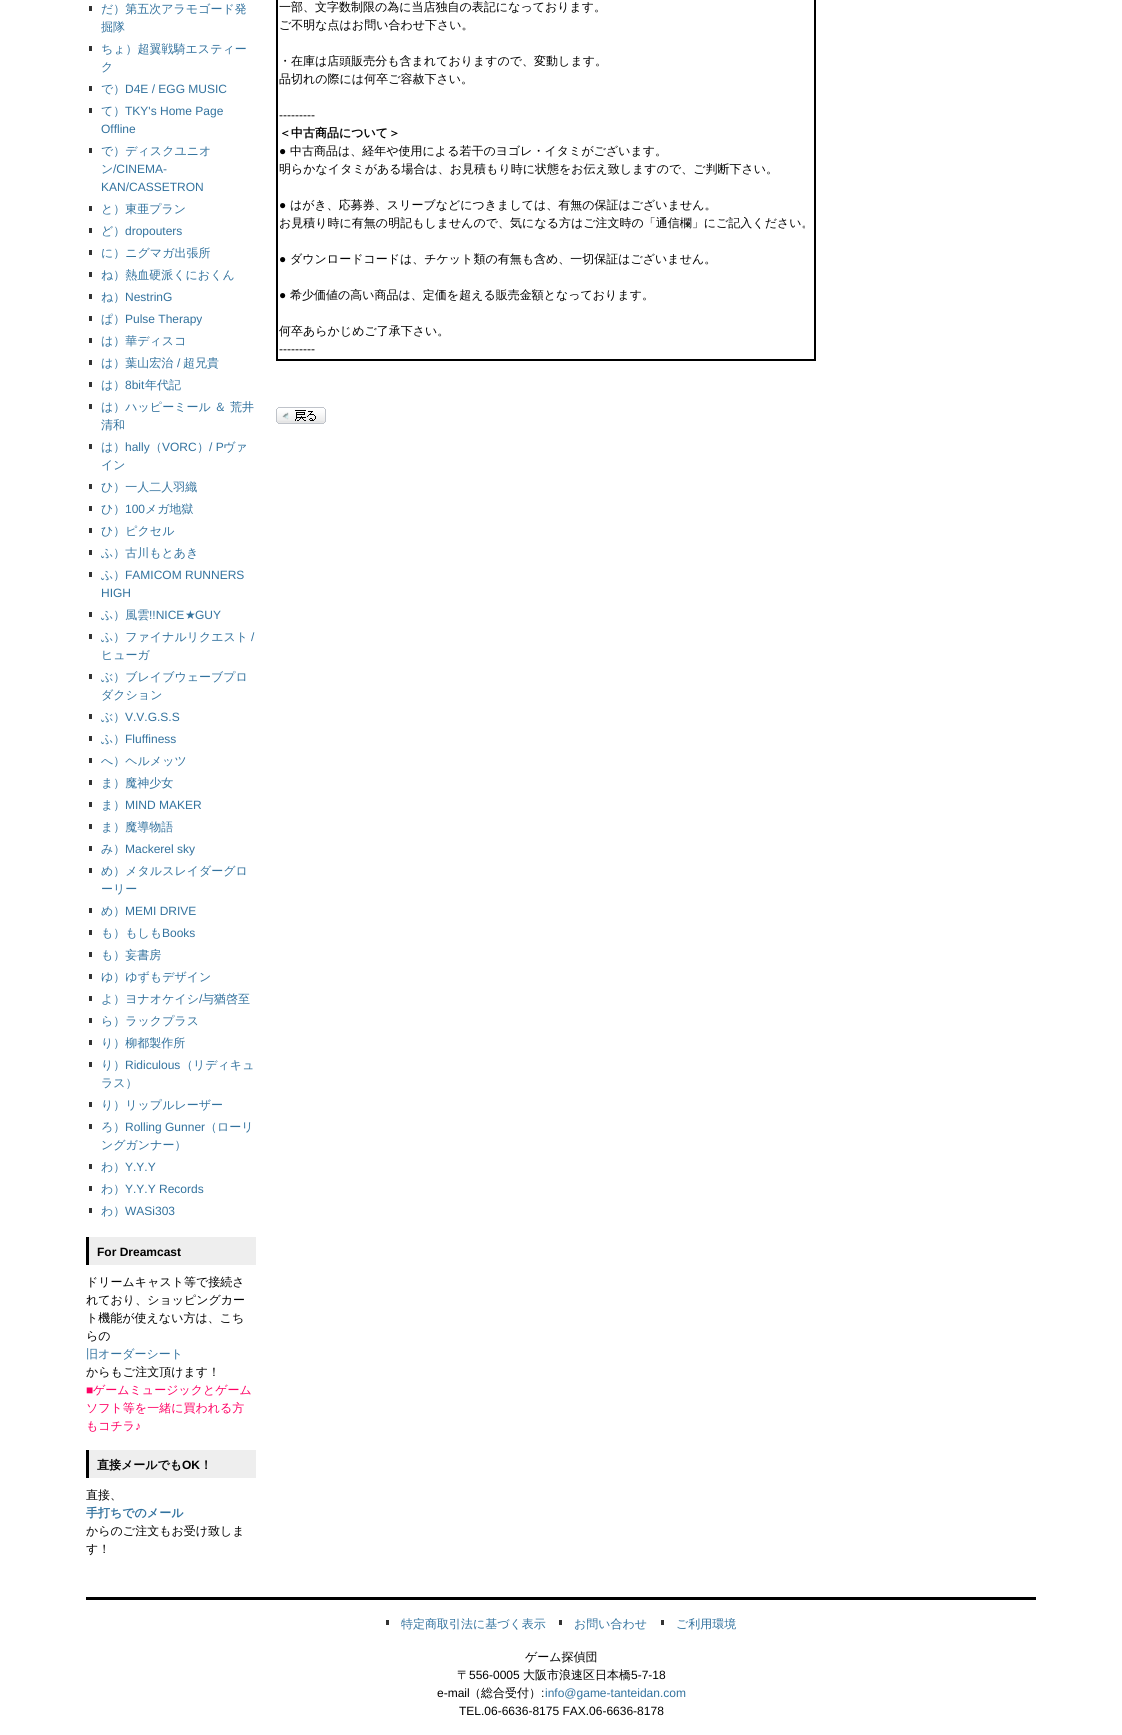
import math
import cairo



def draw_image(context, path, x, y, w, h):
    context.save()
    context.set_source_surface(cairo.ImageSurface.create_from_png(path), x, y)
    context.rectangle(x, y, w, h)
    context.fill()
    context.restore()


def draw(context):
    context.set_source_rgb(1, 1, 1)
    context.paint()
    context.set_source_rgb(51 / 255, 51 / 255, 51 / 255)
    context.rectangle(89, 6, 3, 5)
    context.fill()
    context.rectangle(89, 46, 3, 5)
    context.fill()
    context.rectangle(89, 86, 3, 5)
    context.fill()
    context.rectangle(89, 108, 3, 5)
    context.fill()
    context.rectangle(89, 148, 3, 5)
    context.fill()
    context.rectangle(89, 206, 3, 5)
    context.fill()
    context.rectangle(89, 228, 3, 5)
    context.fill()
    context.rectangle(89, 250, 3, 5)
    context.fill()
    context.rectangle(89, 272, 3, 5)
    context.fill()
    context.rectangle(89, 294, 3, 5)
    context.fill()
    context.rectangle(89, 316, 3, 5)
    context.fill()
    context.rectangle(89, 338, 3, 5)
    context.fill()
    context.rectangle(89, 360, 3, 5)
    context.fill()
    context.rectangle(89, 382, 3, 5)
    context.fill()
    context.rectangle(89, 404, 3, 5)
    context.fill()
    context.rectangle(89, 444, 3, 5)
    context.fill()
    context.rectangle(89, 484, 3, 5)
    context.fill()
    context.rectangle(89, 506, 3, 5)
    context.fill()
    context.rectangle(89, 528, 3, 5)
    context.fill()
    context.rectangle(89, 550, 3, 5)
    context.fill()
    context.rectangle(89, 572, 3, 5)
    context.fill()
    context.rectangle(89, 612, 3, 5)
    context.fill()
    context.rectangle(89, 634, 3, 5)
    context.fill()
    context.rectangle(89, 674, 3, 5)
    context.fill()
    context.rectangle(89, 714, 3, 5)
    context.fill()
    context.rectangle(89, 736, 3, 5)
    context.fill()
    context.rectangle(89, 758, 3, 5)
    context.fill()
    context.rectangle(89, 780, 3, 5)
    context.fill()
    context.rectangle(89, 802, 3, 5)
    context.fill()
    context.rectangle(89, 824, 3, 5)
    context.fill()
    context.rectangle(89, 846, 3, 5)
    context.fill()
    context.rectangle(89, 868, 3, 5)
    context.fill()
    context.rectangle(89, 908, 3, 5)
    context.fill()
    context.rectangle(89, 930, 3, 5)
    context.fill()
    context.rectangle(89, 952, 3, 5)
    context.fill()
    context.rectangle(89, 974, 3, 5)
    context.fill()
    context.rectangle(89, 996, 3, 5)
    context.fill()
    context.rectangle(89, 1018, 3, 5)
    context.fill()
    context.rectangle(89, 1040, 3, 5)
    context.fill()
    context.rectangle(89, 1062, 3, 5)
    context.fill()
    context.rectangle(89, 1102, 3, 5)
    context.fill()
    context.rectangle(89, 1124, 3, 5)
    context.fill()
    context.rectangle(89, 1164, 3, 5)
    context.fill()
    context.rectangle(89, 1186, 3, 5)
    context.fill()
    context.rectangle(89, 1208, 3, 5)
    context.fill()
    context.set_source_rgb(238 / 255, 238 / 255, 238 / 255)
    context.rectangle(89, 1237, 167, 28)
    context.fill()
    context.set_source_rgb(0, 0, 0)
    context.rectangle(86, 1237, 3, 28)
    context.fill()
    context.set_source_rgb(238 / 255, 238 / 255, 238 / 255)
    context.rectangle(89, 1450, 167, 28)
    context.fill()
    context.set_source_rgb(0, 0, 0)
    context.rectangle(86, 1450, 3, 28)
    context.fill()
    context.rectangle(276, 0, 540, 361)
    context.fill()
    context.set_source_rgb(1, 1, 1)
    context.rectangle(278, 0, 536, 359)
    context.fill()
    draw_image(context, "images/1.png", 276, 407, 50, 17)
    context.set_source_rgb(0, 0, 0)
    context.rectangle(86, 1597, 950, 3)
    context.fill()
    context.set_source_rgb(51 / 255, 51 / 255, 51 / 255)
    context.rectangle(386, 1620, 3, 5)
    context.fill()
    context.rectangle(559, 1620, 3, 5)
    context.fill()
    context.rectangle(661, 1620, 3, 5)
    context.fill()
    context.select_font_face("WenQuanYi Zen Hei Medium")
    context.set_font_size(12)
    context.set_source_rgb(50 / 255, 114 / 255, 158 / 255)
    context.move_to(101, 13)
    context.show_text("だ）第五次アラモゴード発")
    context.move_to(101, 31)
    context.show_text("掘隊")
    context.move_to(101, 53)
    context.show_text("ちょ）超翼戦騎エスティー")
    context.move_to(101, 71)
    context.show_text("ク")
    context.move_to(101, 93)
    context.show_text("で）")
    context.select_font_face("Liberation Sans")
    context.move_to(125, 93)
    context.show_text("D4E / EGG MUSIC")
    context.select_font_face("WenQuanYi Zen Hei Medium")
    context.move_to(101, 115)
    context.show_text("て）")
    context.select_font_face("Liberation Sans")
    context.move_to(125, 115)
    context.show_text("TKY's Home Page")
    context.move_to(101, 133)
    context.show_text("Offline")
    context.select_font_face("WenQuanYi Zen Hei Medium")
    context.move_to(101, 155)
    context.show_text("で）ディスクユニオ")
    context.move_to(101, 173)
    context.show_text("ン")
    context.select_font_face("Liberation Sans")
    context.move_to(113, 173)
    context.show_text("/CINEMA-")
    context.move_to(101, 191)
    context.show_text("KAN/CASSETRON")
    context.select_font_face("WenQuanYi Zen Hei Medium")
    context.move_to(101, 213)
    context.show_text("と）東亜プラン")
    context.move_to(101, 235)
    context.show_text("ど）")
    context.select_font_face("Liberation Sans")
    context.move_to(125, 235)
    context.show_text("dropouters")
    context.select_font_face("WenQuanYi Zen Hei Medium")
    context.move_to(101, 257)
    context.show_text("に）ニグマガ出張所")
    context.move_to(101, 279)
    context.show_text("ね）熱血硬派くにおくん")
    context.move_to(101, 301)
    context.show_text("ね）")
    context.select_font_face("Liberation Sans")
    context.move_to(125, 301)
    context.show_text("NestrinG")
    context.select_font_face("WenQuanYi Zen Hei Medium")
    context.move_to(101, 323)
    context.show_text("ぱ）")
    context.select_font_face("Liberation Sans")
    context.move_to(125, 323)
    context.show_text("Pulse Therapy")
    context.select_font_face("WenQuanYi Zen Hei Medium")
    context.move_to(101, 345)
    context.show_text("は）華ディスコ")
    context.move_to(101, 367)
    context.show_text("は）葉山宏治")
    context.select_font_face("Liberation Sans")
    context.move_to(177, 367)
    context.show_text("/")
    context.select_font_face("WenQuanYi Zen Hei Medium")
    context.move_to(183, 367)
    context.show_text("超兄貴")
    context.move_to(101, 389)
    context.show_text("は）")
    context.select_font_face("Liberation Sans")
    context.move_to(125, 389)
    context.show_text("8bit")
    context.select_font_face("WenQuanYi Zen Hei Medium")
    context.move_to(145, 389)
    context.show_text("年代記")
    context.move_to(101, 411)
    context.show_text("は）ハッピーミール ＆ 荒井")
    context.move_to(101, 429)
    context.show_text("清和")
    context.move_to(101, 451)
    context.show_text("は）")
    context.select_font_face("Liberation Sans")
    context.move_to(125, 451)
    context.show_text("hally")
    context.select_font_face("WenQuanYi Zen Hei Medium")
    context.move_to(150, 451)
    context.show_text("（")
    context.select_font_face("Liberation Sans")
    context.move_to(162, 451)
    context.show_text("VORC")
    context.select_font_face("WenQuanYi Zen Hei Medium")
    context.move_to(197, 451)
    context.show_text("）")
    context.select_font_face("Liberation Sans")
    context.move_to(209, 451)
    context.show_text("/ P")
    context.select_font_face("WenQuanYi Zen Hei Medium")
    context.move_to(223, 451)
    context.show_text("ヴァ")
    context.move_to(101, 469)
    context.show_text("イン")
    context.move_to(101, 491)
    context.show_text("ひ）一人二人羽織")
    context.move_to(101, 513)
    context.show_text("ひ）")
    context.select_font_face("Liberation Sans")
    context.move_to(125, 513)
    context.show_text("100")
    context.select_font_face("WenQuanYi Zen Hei Medium")
    context.move_to(145, 513)
    context.show_text("メガ地獄")
    context.move_to(101, 535)
    context.show_text("ひ）ピクセル")
    context.move_to(101, 557)
    context.show_text("ふ）古川もとあき")
    context.move_to(101, 579)
    context.show_text("ふ）")
    context.select_font_face("Liberation Sans")
    context.move_to(125, 579)
    context.show_text("FAMICOM RUNNERS")
    context.move_to(101, 597)
    context.show_text("HIGH")
    context.select_font_face("WenQuanYi Zen Hei Medium")
    context.move_to(101, 619)
    context.show_text("ふ）風雲")
    context.select_font_face("Liberation Sans")
    context.move_to(149, 619)
    context.show_text("!!NICE")
    context.select_font_face("DejaVu Sans")
    context.move_to(185, 619)
    context.show_text("★")
    context.select_font_face("Liberation Sans")
    context.move_to(195, 619)
    context.show_text("GUY")
    context.select_font_face("WenQuanYi Zen Hei Medium")
    context.move_to(101, 641)
    context.show_text("ふ）ファイナルリクエスト")
    context.select_font_face("Liberation Sans")
    context.move_to(251, 641)
    context.show_text("/")
    context.select_font_face("WenQuanYi Zen Hei Medium")
    context.move_to(101, 659)
    context.show_text("ヒューガ")
    context.move_to(101, 681)
    context.show_text("ぶ）ブレイブウェーブプロ")
    context.move_to(101, 699)
    context.show_text("ダクション")
    context.move_to(101, 721)
    context.show_text("ぶ）")
    context.select_font_face("Liberation Sans")
    context.move_to(125, 721)
    context.show_text("V.V.G.S.S")
    context.select_font_face("WenQuanYi Zen Hei Medium")
    context.move_to(101, 743)
    context.show_text("ふ）")
    context.select_font_face("Liberation Sans")
    context.move_to(125, 743)
    context.show_text("Fluffiness")
    context.select_font_face("WenQuanYi Zen Hei Medium")
    context.move_to(101, 765)
    context.show_text("へ）ヘルメッツ")
    context.move_to(101, 787)
    context.show_text("ま）魔神少女")
    context.move_to(101, 809)
    context.show_text("ま）")
    context.select_font_face("Liberation Sans")
    context.move_to(125, 809)
    context.show_text("MIND MAKER")
    context.select_font_face("WenQuanYi Zen Hei Medium")
    context.move_to(101, 831)
    context.show_text("ま）魔導物語")
    context.move_to(101, 853)
    context.show_text("み）")
    context.select_font_face("Liberation Sans")
    context.move_to(125, 853)
    context.show_text("Mackerel sky")
    context.select_font_face("WenQuanYi Zen Hei Medium")
    context.move_to(101, 875)
    context.show_text("め）メタルスレイダーグロ")
    context.move_to(101, 893)
    context.show_text("ーリー")
    context.move_to(101, 915)
    context.show_text("め）")
    context.select_font_face("Liberation Sans")
    context.move_to(125, 915)
    context.show_text("MEMI DRIVE")
    context.select_font_face("WenQuanYi Zen Hei Medium")
    context.move_to(101, 937)
    context.show_text("も）もしも")
    context.select_font_face("Liberation Sans")
    context.move_to(162, 937)
    context.show_text("Books")
    context.select_font_face("WenQuanYi Zen Hei Medium")
    context.move_to(101, 959)
    context.show_text("も）妄書房")
    context.move_to(101, 981)
    context.show_text("ゆ）ゆずもデザイン")
    context.move_to(101, 1003)
    context.show_text("よ）ヨナオケイシ")
    context.select_font_face("Liberation Sans")
    context.move_to(199, 1003)
    context.show_text("/")
    context.select_font_face("WenQuanYi Zen Hei Medium")
    context.move_to(202, 1003)
    context.show_text("与猶啓至")
    context.move_to(101, 1025)
    context.show_text("ら）ラックプラス")
    context.move_to(101, 1047)
    context.show_text("り）柳都製作所")
    context.move_to(101, 1069)
    context.show_text("り）")
    context.select_font_face("Liberation Sans")
    context.move_to(125, 1069)
    context.show_text("Ridiculous")
    context.select_font_face("WenQuanYi Zen Hei Medium")
    context.move_to(181, 1069)
    context.show_text("（リディキュ")
    context.move_to(101, 1087)
    context.show_text("ラス）")
    context.move_to(101, 1109)
    context.show_text("り）リップルレーザー")
    context.move_to(101, 1131)
    context.show_text("ろ）")
    context.select_font_face("Liberation Sans")
    context.move_to(125, 1131)
    context.show_text("Rolling Gunner")
    context.select_font_face("WenQuanYi Zen Hei Medium")
    context.move_to(205, 1131)
    context.show_text("（ローリ")
    context.move_to(101, 1149)
    context.show_text("ングガンナー）")
    context.move_to(101, 1171)
    context.show_text("わ）")
    context.select_font_face("Liberation Sans")
    context.move_to(125, 1171)
    context.show_text("Y.Y.Y")
    context.select_font_face("WenQuanYi Zen Hei Medium")
    context.move_to(101, 1193)
    context.show_text("わ）")
    context.select_font_face("Liberation Sans")
    context.move_to(125, 1193)
    context.show_text("Y.Y.Y Records")
    context.select_font_face("WenQuanYi Zen Hei Medium")
    context.move_to(101, 1215)
    context.show_text("わ）")
    context.select_font_face("Liberation Sans")
    context.move_to(125, 1215)
    context.show_text("WASi303")
    context.select_font_face("Liberation Sans", cairo.FontSlant.NORMAL, cairo.FontWeight.BOLD)
    context.set_source_rgb(0, 0, 0)
    context.move_to(97, 1256)
    context.show_text("For Dreamcast")
    context.select_font_face("WenQuanYi Zen Hei Medium")
    context.move_to(86, 1286)
    context.show_text("ドリームキャスト等で接続さ")
    context.move_to(86, 1304)
    context.show_text("れており、ショッピングカー")
    context.move_to(86, 1322)
    context.show_text("ト機能が使えない方は、こち")
    context.move_to(86, 1340)
    context.show_text("らの")
    context.set_source_rgb(50 / 255, 114 / 255, 158 / 255)
    context.move_to(86, 1358)
    context.show_text("旧オーダーシート")
    context.set_source_rgb(0, 0, 0)
    context.move_to(86, 1376)
    context.show_text("からもご注文頂けます！")
    context.select_font_face("Liberation Sans")
    context.set_source_rgb(1, 0, 99 / 255)
    context.move_to(86, 1394)
    context.show_text("■")
    context.select_font_face("WenQuanYi Zen Hei Medium")
    context.move_to(93, 1394)
    context.show_text("ゲームミュージックとゲーム")
    context.move_to(86, 1412)
    context.show_text("ソフト等を一緒に買われる方")
    context.move_to(86, 1430)
    context.show_text("もコチラ")
    context.select_font_face("Liberation Sans")
    context.move_to(135, 1430)
    context.show_text("♪")
    context.select_font_face("WenQuanYi Zen Hei", cairo.FontSlant.NORMAL, cairo.FontWeight.BOLD)
    context.set_source_rgb(0, 0, 0)
    context.move_to(97, 1469)
    context.show_text("直接メールでも")
    context.select_font_face("Liberation Sans", cairo.FontSlant.NORMAL, cairo.FontWeight.BOLD)
    context.move_to(182, 1469)
    context.show_text("OK")
    context.select_font_face("WenQuanYi Zen Hei", cairo.FontSlant.NORMAL, cairo.FontWeight.BOLD)
    context.move_to(200, 1469)
    context.show_text("！")
    context.select_font_face("WenQuanYi Zen Hei Medium")
    context.move_to(86, 1499)
    context.show_text("直接、")
    context.select_font_face("WenQuanYi Zen Hei", cairo.FontSlant.NORMAL, cairo.FontWeight.BOLD)
    context.set_source_rgb(50 / 255, 114 / 255, 158 / 255)
    context.move_to(86, 1517)
    context.show_text("手打ちでのメール")
    context.select_font_face("WenQuanYi Zen Hei Medium")
    context.set_source_rgb(0, 0, 0)
    context.move_to(86, 1535)
    context.show_text("からのご注文もお受け致しま")
    context.move_to(86, 1553)
    context.show_text("す！")
    context.move_to(279, 11)
    context.show_text("一部、文字数制限の為に当店独自の表記になっております。")
    context.move_to(279, 29)
    context.show_text("ご不明な点はお問い合わせ下さい。")
    context.move_to(279, 65)
    context.show_text("・在庫は店頭販売分も含まれておりますので、変動します。")
    context.move_to(279, 83)
    context.show_text("品切れの際には何卒ご容赦下さい。")
    context.select_font_face("Liberation Sans")
    context.move_to(279, 119)
    context.show_text("---------")
    context.select_font_face("WenQuanYi Zen Hei", cairo.FontSlant.NORMAL, cairo.FontWeight.BOLD)
    context.move_to(279, 137)
    context.show_text("＜中古商品について＞")
    context.select_font_face("Liberation Sans")
    context.move_to(279, 155)
    context.show_text("●")
    context.select_font_face("WenQuanYi Zen Hei Medium")
    context.move_to(290, 155)
    context.show_text("中古商品は、経年や使用による若干のヨゴレ・イタミがございます。")
    context.move_to(279, 173)
    context.show_text("明らかなイタミがある場合は、お見積もり時に状態をお伝え致しますので、ご判断下さい。")
    context.select_font_face("Liberation Sans")
    context.move_to(279, 209)
    context.show_text("●")
    context.select_font_face("WenQuanYi Zen Hei Medium")
    context.move_to(290, 209)
    context.show_text("はがき、応募券、スリーブなどにつきましては、有無の保証はございません。")
    context.move_to(279, 227)
    context.show_text("お見積り時に有無の明記もしませんので、気になる方はご注文時の「通信欄」にご記入ください。")
    context.select_font_face("Liberation Sans")
    context.move_to(279, 263)
    context.show_text("●")
    context.select_font_face("WenQuanYi Zen Hei Medium")
    context.move_to(290, 263)
    context.show_text("ダウンロードコードは、チケット類の有無も含め、一切保証はございません。")
    context.select_font_face("Liberation Sans")
    context.move_to(279, 299)
    context.show_text("●")
    context.select_font_face("WenQuanYi Zen Hei Medium")
    context.move_to(290, 299)
    context.show_text("希少価値の高い商品は、定価を超える販売金額となっております。")
    context.move_to(279, 335)
    context.show_text("何卒あらかじめご了承下さい。")
    context.select_font_face("Liberation Sans")
    context.move_to(279, 353)
    context.show_text("---------")
    context.select_font_face("WenQuanYi Zen Hei Medium")
    context.set_source_rgb(50 / 255, 114 / 255, 158 / 255)
    context.move_to(401, 1628)
    context.show_text("特定商取引法に基づく表示")
    context.move_to(574, 1628)
    context.show_text("お問い合わせ")
    context.move_to(676, 1628)
    context.show_text("ご利用環境")
    context.set_source_rgb(0, 0, 0)
    context.move_to(525, 1661)
    context.show_text("ゲーム探偵団")
    context.move_to(457, 1679)
    context.show_text("〒")
    context.select_font_face("Liberation Sans")
    context.move_to(469, 1679)
    context.show_text("556-0005")
    context.select_font_face("WenQuanYi Zen Hei Medium")
    context.move_to(523, 1679)
    context.show_text("大阪市浪速区日本橋")
    context.select_font_face("Liberation Sans")
    context.move_to(631, 1679)
    context.show_text("5-7-18")
    context.move_to(437, 1697)
    context.show_text("e-mail")
    context.select_font_face("WenQuanYi Zen Hei Medium")
    context.move_to(469, 1697)
    context.show_text("（総合受付）")
    context.select_font_face("Liberation Sans")
    context.move_to(541, 1697)
    context.show_text(":")
    context.set_source_rgb(50 / 255, 114 / 255, 158 / 255)
    context.move_to(545, 1697)
    context.show_text("info@game-tanteidan.com")
    context.set_source_rgb(0, 0, 0)
    context.move_to(459, 1715)
    context.show_text("TEL.06-6636-8175 FAX.06-6636-8178")


surface = cairo.ImageSurface(cairo.Format.RGB24, 1122, 1735)
context = cairo.Context(surface)
options = cairo.FontOptions()
options.set_hint_metrics(cairo.HintMetrics.OFF)
options.set_hint_style(cairo.HintStyle.NONE)
context.set_font_options(options)
context.set_miter_limit(4)
draw(context)
surface.write_to_png("out.png")
